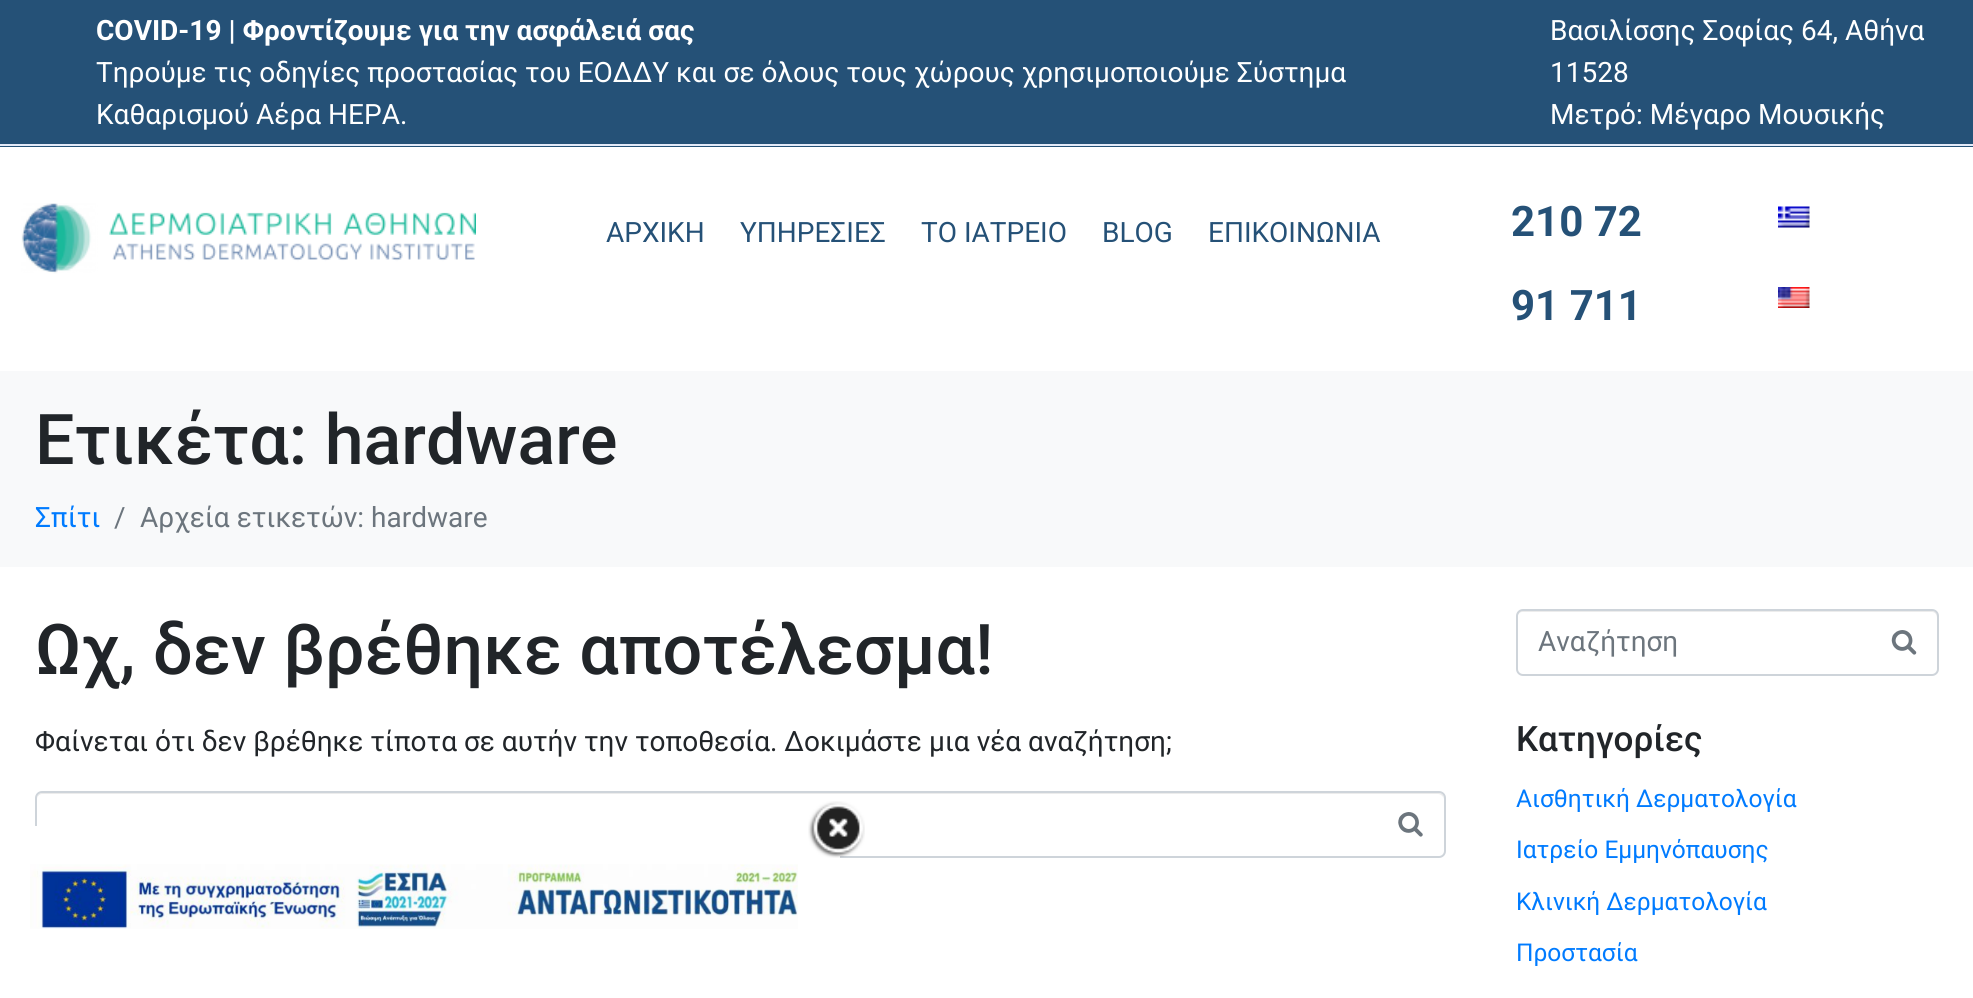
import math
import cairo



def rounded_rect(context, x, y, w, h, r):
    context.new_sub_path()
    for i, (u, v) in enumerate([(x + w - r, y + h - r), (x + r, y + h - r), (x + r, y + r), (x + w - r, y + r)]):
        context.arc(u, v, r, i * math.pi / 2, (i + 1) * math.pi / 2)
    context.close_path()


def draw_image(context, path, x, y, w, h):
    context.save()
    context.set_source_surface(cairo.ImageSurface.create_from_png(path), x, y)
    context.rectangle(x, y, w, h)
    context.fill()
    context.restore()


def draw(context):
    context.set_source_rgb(1, 1, 1)
    context.paint()
    context.set_source_rgb(37 / 255, 81 / 255, 119 / 255)
    context.rectangle(0, 0, 1973, 147)
    context.fill()
    context.set_source_rgb(227 / 255, 234 / 255, 248 / 255)
    context.rectangle(0, 144, 1973, 2)
    context.fill()
    draw_image(context, "images/1.png", 21, 203, 455, 71)
    draw_image(context, "images/2.png", 1778, 206, 32, 22)
    draw_image(context, "images/3.png", 1778, 287, 32, 21)
    context.set_source_rgb(248 / 255, 249 / 255, 250 / 255)
    context.rectangle(0, 371, 1973, 196)
    context.fill()
    context.set_source_rgb(236 / 255, 236 / 255, 236 / 255)
    context.new_path()
    context.move_to(42, 794)
    context.line_to(1438, 794)
    context.curve_to(1441, 794, 1444, 797, 1444, 800)
    context.curve_to(1444, 797, 1443, 793, 1439, 793)
    context.line_to(42, 793)
    context.curve_to(38, 793, 37, 797, 37, 800)
    context.curve_to(37, 797, 39, 794, 42, 794)
    context.close_path()
    context.fill()
    rounded_rect(context, 36, 792, 1409, 65, 6)
    context.set_source_rgb(206 / 255, 212 / 255, 218 / 255)
    context.stroke()
    draw_image(context, "images/4.png", 1398, 812, 25, 25)
    context.set_source_rgb(236 / 255, 236 / 255, 236 / 255)
    context.new_path()
    context.move_to(1522, 612)
    context.line_to(1932, 612)
    context.curve_to(1935, 612, 1937, 615, 1937, 618)
    context.line_to(1937, 616)
    context.curve_to(1937, 613, 1935, 611, 1932, 611)
    context.line_to(1522, 611)
    context.curve_to(1519, 611, 1517, 613, 1517, 616)
    context.line_to(1517, 618)
    context.curve_to(1517, 615, 1520, 612, 1522, 612)
    context.close_path()
    context.fill()
    rounded_rect(context, 1517, 610, 421, 65, 6)
    context.set_source_rgb(206 / 255, 212 / 255, 218 / 255)
    context.stroke()
    draw_image(context, "images/5.png", 1891, 630, 26, 25)
    context.set_source_rgb(1, 1, 1)
    context.rectangle(35, 826, 805, 32)
    context.fill()
    draw_image(context, "images/6.png", 808, 801, 57, 57)
    draw_image(context, "images/7.png", 30, 864, 768, 65)
    context.select_font_face("Roboto", cairo.FontSlant.NORMAL, cairo.FontWeight.BOLD)
    context.set_font_size(28)
    context.move_to(96, 40)
    context.show_text("COVID-19 | Φροντίζουμε για την ασφάλειά σας")
    context.select_font_face("Roboto")
    context.move_to(96, 82)
    context.show_text("Τηρούμε τις οδηγίες προστασίας του ΕΟΔΔΥ και σε όλους τους χώρους χρησιμοποιούμε Σύστημα")
    context.move_to(96, 124)
    context.show_text("Καθαρισμού Αέρα ΗΕΡΑ.")
    context.move_to(1550, 40)
    context.show_text("Βασιλίσσης Σοφίας 64, Αθήνα")
    context.move_to(1550, 82)
    context.show_text("11528")
    context.move_to(1550, 124)
    context.show_text("Μετρό: Μέγαρο Μουσικής")
    context.set_source_rgb(37 / 255, 81 / 255, 119 / 255)
    context.move_to(606, 242)
    context.show_text("ΑΡΧΙΚΗ")
    context.move_to(740, 242)
    context.show_text("ΥΠΗΡΕΣΙΕΣ")
    context.move_to(921, 242)
    context.show_text("ΤΟ ΙΑΤΡΕΙΟ")
    context.move_to(1102, 242)
    context.show_text("BLOG")
    context.move_to(1208, 242)
    context.show_text("ΕΠΙΚΟΙΝΩΝΙΑ")
    context.select_font_face("Roboto", cairo.FontSlant.NORMAL, cairo.FontWeight.BOLD)
    context.set_font_size(42)
    context.move_to(1511, 236)
    context.show_text("210 72")
    context.move_to(1511, 320)
    context.show_text("91 711")
    context.select_font_face("Roboto Medium")
    context.set_font_size(70)
    context.set_source_rgb(33 / 255, 37 / 255, 41 / 255)
    context.move_to(35, 464)
    context.show_text("Ετικέτα: hardware")
    context.select_font_face("Roboto")
    context.set_font_size(28)
    context.set_source_rgb(0, 123 / 255, 1)
    context.move_to(35, 527)
    context.show_text("Σπίτι")
    context.set_source_rgb(108 / 255, 117 / 255, 125 / 255)
    context.move_to(114, 527)
    context.show_text("/")
    context.move_to(140, 527)
    context.show_text("Αρχεία ετικετών: hardware")
    context.select_font_face("Roboto Medium")
    context.set_font_size(70)
    context.set_source_rgb(33 / 255, 37 / 255, 41 / 255)
    context.move_to(35, 674)
    context.show_text("Ωχ, δεν βρέθηκε αποτέλεσμα!")
    context.select_font_face("Roboto")
    context.set_font_size(28)
    context.move_to(35, 751)
    context.show_text("Φαίνεται ότι δεν βρέθηκε τίποτα σε αυτήν την τοποθεσία. Δοκιμάστε μια νέα αναζήτηση;")
    context.set_source_rgb(108 / 255, 117 / 255, 125 / 255)
    context.move_to(1538, 651)
    context.show_text("Αναζήτηση")
    context.select_font_face("Roboto Medium")
    context.set_font_size(35)
    context.set_source_rgb(33 / 255, 37 / 255, 41 / 255)
    context.move_to(1516, 751)
    context.show_text("Kατηγορίες")
    context.select_font_face("Roboto")
    context.set_font_size(24.5)
    context.set_source_rgb(0, 123 / 255, 1)
    context.move_to(1516, 807)
    context.show_text("Αισθητική Δερματολογία")
    context.move_to(1516, 858)
    context.show_text("Ιατρείο Εμμηνόπαυσης")
    context.move_to(1516, 910)
    context.show_text("Κλινική Δερματολογία")
    context.move_to(1516, 961)
    context.show_text("Προστασία")


surface = cairo.ImageSurface(cairo.Format.RGB24, 1973, 998)
context = cairo.Context(surface)
options = cairo.FontOptions()
options.set_hint_metrics(cairo.HintMetrics.OFF)
options.set_hint_style(cairo.HintStyle.NONE)
context.set_font_options(options)
context.set_miter_limit(4)
draw(context)
surface.write_to_png("out.png")
